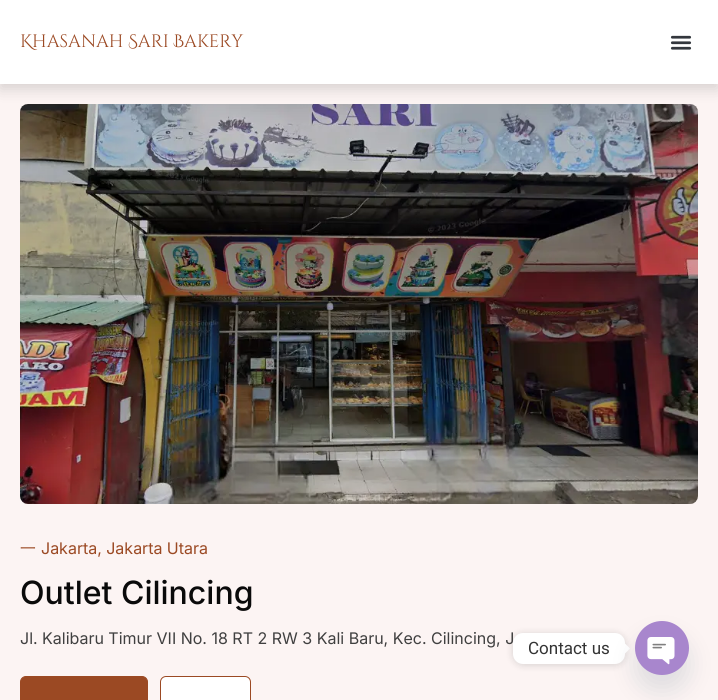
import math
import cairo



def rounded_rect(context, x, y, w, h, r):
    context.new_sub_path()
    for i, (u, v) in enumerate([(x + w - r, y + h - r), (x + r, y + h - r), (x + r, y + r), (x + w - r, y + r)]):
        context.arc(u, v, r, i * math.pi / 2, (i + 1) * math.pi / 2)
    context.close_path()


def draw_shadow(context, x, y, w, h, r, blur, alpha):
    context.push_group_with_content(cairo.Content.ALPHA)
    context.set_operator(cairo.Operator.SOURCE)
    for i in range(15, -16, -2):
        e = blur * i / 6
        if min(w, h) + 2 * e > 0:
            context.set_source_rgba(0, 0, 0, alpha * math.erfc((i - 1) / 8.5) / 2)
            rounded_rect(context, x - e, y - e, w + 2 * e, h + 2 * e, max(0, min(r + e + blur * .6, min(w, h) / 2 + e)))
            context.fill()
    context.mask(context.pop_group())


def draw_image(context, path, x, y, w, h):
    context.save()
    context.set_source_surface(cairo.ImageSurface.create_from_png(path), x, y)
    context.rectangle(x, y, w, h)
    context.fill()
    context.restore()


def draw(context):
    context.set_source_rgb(252 / 255, 244 / 255, 243 / 255)
    context.paint()
    draw_image(context, "images/2.png", 20, 104, 678, 400)
    context.set_source_rgb(0, 0, 0)
    draw_shadow(context, 0, 5, 718, 84, 0, 7.5, 0.15)
    context.set_source_rgb(1, 1, 1)
    context.rectangle(0, 0, 718, 84)
    context.fill()
    draw_image(context, "images/1.png", 670, 35, 22, 15)
    context.set_source_rgb(155 / 255, 73 / 255, 35 / 255)
    rounded_rect(context, 20.5, 676.5, 127, 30, 5.5)
    context.fill_preserve()
    context.set_line_width(1)
    context.stroke()
    context.set_source_rgb(1, 1, 1)
    rounded_rect(context, 160.5, 676.5, 90, 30, 5.5)
    context.fill_preserve()
    context.set_source_rgb(155 / 255, 73 / 255, 35 / 255)
    context.stroke()
    context.set_source_rgb(0, 0, 0)
    draw_shadow(context, 513, 634, 112, 31, 10, 4, 0.15)
    context.set_source_rgb(1, 1, 1)
    rounded_rect(context, 513, 633, 112, 31, 10)
    context.fill()
    context.new_path()
    context.move_to(625, 653.5)
    context.line_to(625, 643.5)
    context.line_to(630, 648.5)
    context.close_path()
    context.fill()
    context.set_source_rgb(73 / 255, 104 / 255, 126 / 255)
    draw_shadow(context, 635, 637, 54, 54, 27, 12, 0.16)
    draw_image(context, "images/3.png", 635, 621, 54, 54)
    context.select_font_face("Cinzel Decorative")
    context.set_font_size(18)
    context.set_source_rgb(155 / 255, 73 / 255, 35 / 255)
    context.move_to(20, 47)
    context.show_text("Khasanah Sari Bakery")
    context.select_font_face("WenQuanYi Zen Hei Medium")
    context.set_font_size(16)
    context.move_to(20, 554)
    context.show_text("一")
    context.select_font_face("Inter")
    context.move_to(41, 554)
    context.show_text("Jakarta, Jakarta Utara")
    context.select_font_face("Inter Medium")
    context.set_font_size(32)
    context.set_source_rgb(10 / 255, 10 / 255, 10 / 255)
    context.move_to(20, 604)
    context.show_text("Outlet Cilincing")
    context.select_font_face("Inter")
    context.set_font_size(16)
    context.set_source_rgb(64 / 255, 64 / 255, 64 / 255)
    context.move_to(20, 644)
    context.show_text("Jl. Kalibaru Timur VII No. 18 RT 2 RW 3 Kali Baru, Kec. Cilincing, J")
    context.select_font_face("Roboto")
    context.set_font_size(17)
    context.set_source_rgb(51 / 255, 51 / 255, 51 / 255)
    context.move_to(528, 654)
    context.show_text("Contact us")


surface = cairo.ImageSurface(cairo.Format.RGB24, 718, 700)
context = cairo.Context(surface)
options = cairo.FontOptions()
options.set_hint_metrics(cairo.HintMetrics.OFF)
options.set_hint_style(cairo.HintStyle.NONE)
context.set_font_options(options)
context.set_miter_limit(4)
draw(context)
surface.write_to_png("out.png")
